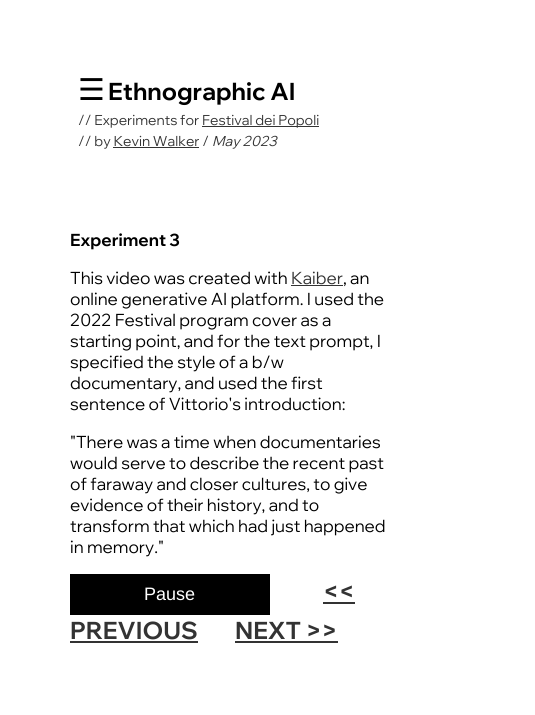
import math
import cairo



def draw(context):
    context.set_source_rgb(1, 1, 1)
    context.paint()
    context.set_source_rgb(51 / 255, 51 / 255, 51 / 255)
    context.rectangle(202, 126, 117, 1)
    context.fill()
    context.rectangle(113, 147, 86, 1)
    context.fill()
    context.rectangle(291, 285, 52, 1)
    context.fill()
    context.set_source_rgb(0, 0, 0)
    context.rectangle(70, 574, 200, 41)
    context.fill()
    context.set_source_rgb(51 / 255, 51 / 255, 51 / 255)
    context.rectangle(323, 602, 32, 2)
    context.fill()
    context.rectangle(70, 641, 128, 2)
    context.fill()
    context.rectangle(235, 641, 103, 2)
    context.fill()
    context.select_font_face("DejaVu Sans")
    context.set_font_size(30)
    context.set_source_rgb(0, 0, 0)
    context.move_to(78, 100)
    context.show_text("☰")
    context.select_font_face("Wix Madefor Display", cairo.FontSlant.NORMAL, cairo.FontWeight.BOLD)
    context.set_font_size(24)
    context.move_to(108, 100)
    context.show_text("Ethnographic AI")
    context.select_font_face("Wix Madefor Display")
    context.set_font_size(14)
    context.set_source_rgb(51 / 255, 51 / 255, 51 / 255)
    context.move_to(78, 125)
    context.show_text("// Experiments for")
    context.move_to(202, 125)
    context.show_text("Festival dei Popoli")
    context.move_to(78, 146)
    context.show_text("// by Kevin Walker /")
    context.select_font_face("Wix Madefor Display", cairo.FontSlant.ITALIC)
    context.move_to(212, 146)
    context.show_text("May 2023")
    context.select_font_face("Wix Madefor Display", cairo.FontSlant.NORMAL, cairo.FontWeight.BOLD)
    context.set_font_size(17)
    context.set_source_rgb(0, 0, 0)
    context.move_to(70, 246)
    context.show_text("Experiment 3")
    context.select_font_face("Wix Madefor Display")
    context.move_to(70, 284)
    context.show_text("This video was created with")
    context.set_source_rgb(51 / 255, 51 / 255, 51 / 255)
    context.move_to(291, 284)
    context.show_text("Kaiber")
    context.set_source_rgb(0, 0, 0)
    context.move_to(343, 284)
    context.show_text(", an")
    context.move_to(70, 305)
    context.show_text("online generative AI platform. I used the")
    context.move_to(70, 326)
    context.show_text("2022 Festival program cover as a")
    context.move_to(70, 347)
    context.show_text("starting point, and for the text prompt, I")
    context.move_to(70, 368)
    context.show_text("specified the style of a b/w")
    context.move_to(70, 389)
    context.show_text("documentary, and used the first")
    context.move_to(70, 410)
    context.show_text("sentence of Vittorio's introduction:")
    context.move_to(70, 448)
    context.show_text("\"There was a time when documentaries")
    context.move_to(70, 469)
    context.show_text("would serve to describe the recent past")
    context.move_to(70, 490)
    context.show_text("of faraway and closer cultures, to give")
    context.move_to(70, 511)
    context.show_text("evidence of their history, and to")
    context.move_to(70, 532)
    context.show_text("transform that which had just happened")
    context.move_to(70, 553)
    context.show_text("in memory.\"")
    context.select_font_face("Liberation Sans")
    context.set_font_size(18)
    context.set_source_rgb(1, 1, 1)
    context.move_to(144, 600)
    context.show_text("Pause")
    context.select_font_face("Wix Madefor Display", cairo.FontSlant.NORMAL, cairo.FontWeight.BOLD)
    context.set_font_size(24)
    context.set_source_rgb(51 / 255, 51 / 255, 51 / 255)
    context.move_to(323, 600)
    context.show_text("<<")
    context.move_to(70, 639)
    context.show_text("PREVIOUS")
    context.move_to(235, 639)
    context.show_text("NEXT >>")


surface = cairo.ImageSurface(cairo.Format.RGB24, 535, 715)
context = cairo.Context(surface)
options = cairo.FontOptions()
options.set_hint_metrics(cairo.HintMetrics.OFF)
options.set_hint_style(cairo.HintStyle.NONE)
context.set_font_options(options)
context.set_miter_limit(4)
draw(context)
surface.write_to_png("out.png")
